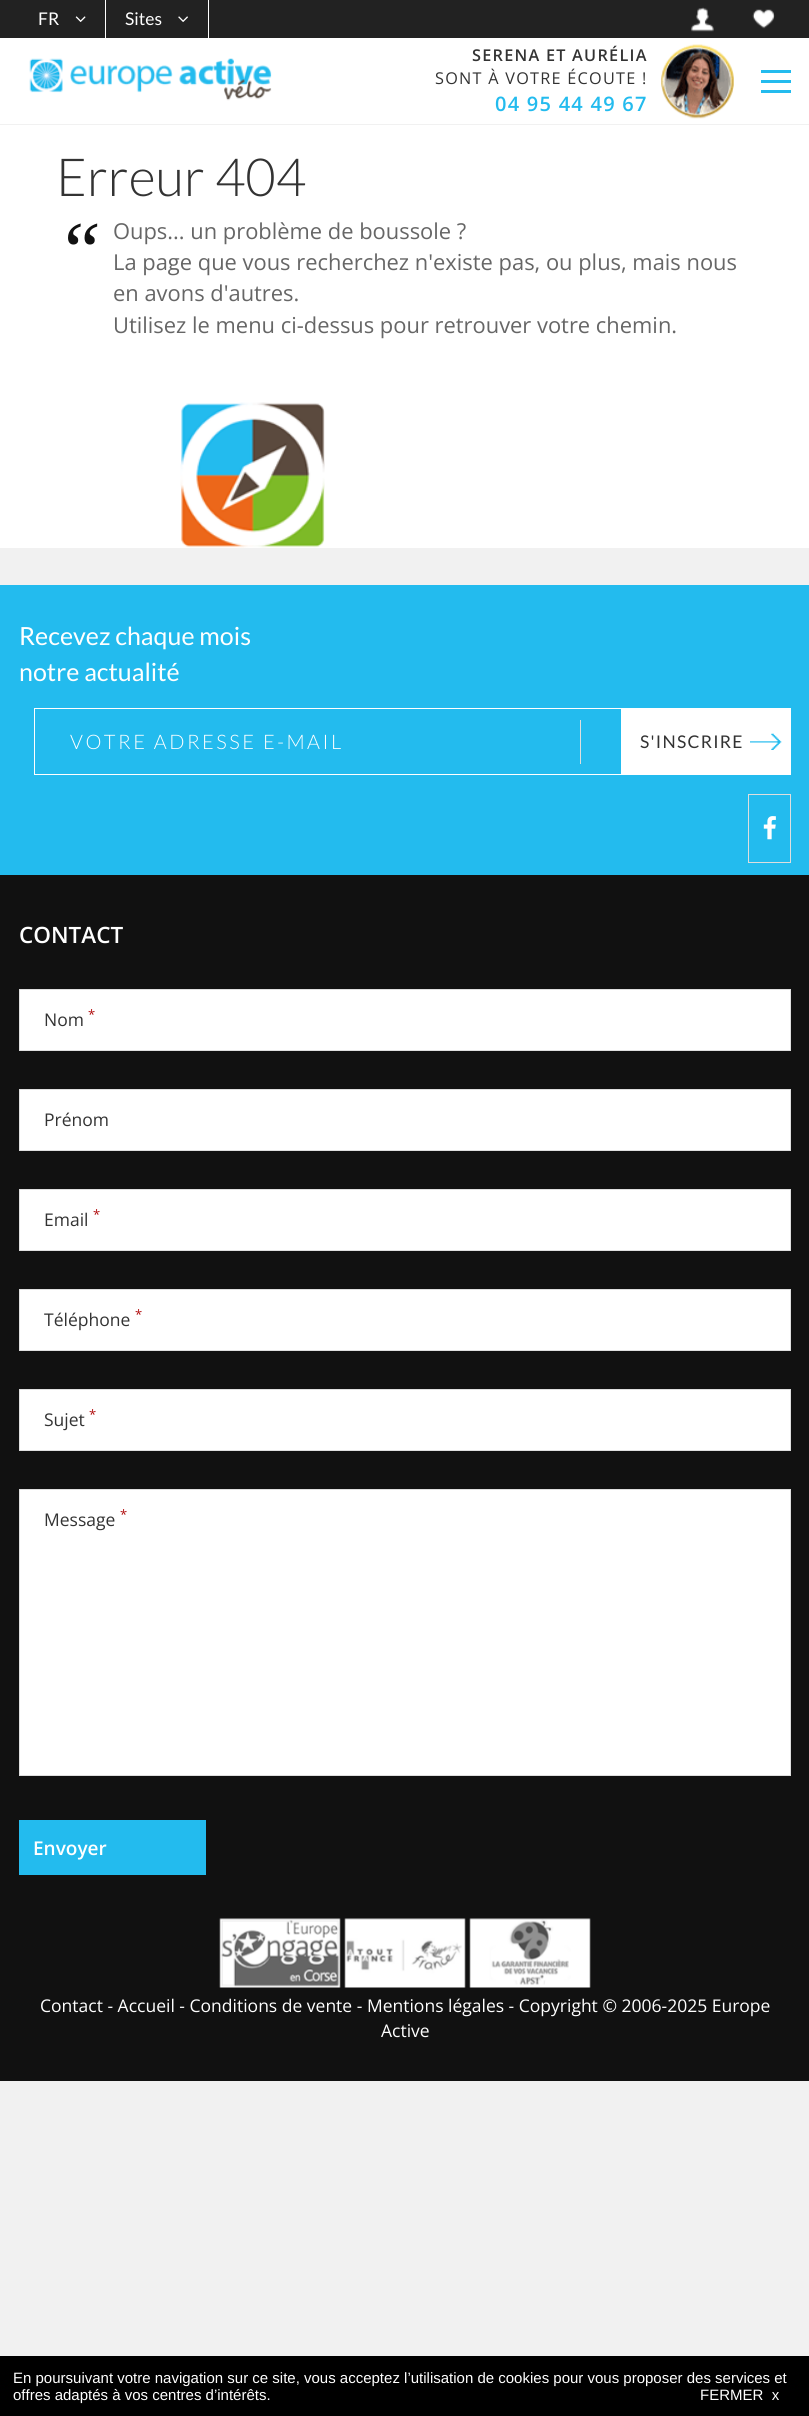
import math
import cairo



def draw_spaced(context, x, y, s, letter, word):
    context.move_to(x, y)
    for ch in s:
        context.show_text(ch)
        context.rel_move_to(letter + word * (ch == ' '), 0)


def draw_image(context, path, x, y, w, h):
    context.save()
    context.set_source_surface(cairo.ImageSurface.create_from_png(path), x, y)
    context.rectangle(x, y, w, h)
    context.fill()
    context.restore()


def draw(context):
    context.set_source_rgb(241 / 255, 241 / 255, 241 / 255)
    context.paint()
    context.set_source_rgb(1, 1, 1)
    context.rectangle(0, 38, 809, 86)
    context.fill()
    context.set_source_rgb(34 / 255, 34 / 255, 34 / 255)
    context.rectangle(0, 0, 809, 38)
    context.fill()
    context.set_source_rgb(1, 1, 1)
    context.rectangle(105, 0, 1, 38)
    context.fill()
    draw_image(context, "images/1.png", 75, 16, 11, 6)
    context.rectangle(208, 0, 1, 38)
    context.fill()
    draw_image(context, "images/2.png", 178, 16, 10, 6)
    draw_image(context, "images/3.png", 691, 7, 23, 25)
    draw_image(context, "images/4.png", 752, 9, 23, 20)
    draw_image(context, "images/5.png", 29, 58, 243, 43)
    draw_image(context, "images/6.png", 661, 44, 73, 75)
    context.set_source_rgb(35 / 255, 187 / 255, 238 / 255)
    context.rectangle(761, 70, 30, 3)
    context.fill()
    context.rectangle(761, 90, 30, 3)
    context.fill()
    context.rectangle(761, 80, 30, 3)
    context.fill()
    context.set_source_rgb(1, 1, 1)
    context.rectangle(0, 125, 809, 423)
    context.fill()
    draw_image(context, "images/7.png", 180, 402, 145, 146)
    context.set_source_rgb(35 / 255, 187 / 255, 238 / 255)
    context.rectangle(0, 585, 809, 290)
    context.fill()
    context.save()
    context.rectangle(19, 689, 772, 105)
    context.clip()
    context.rectangle(34.5, 708.5, 760, 66)
    context.set_source_rgb(1, 1, 1)
    context.set_line_width(1)
    context.stroke()
    context.restore()
    context.set_source_rgb(222 / 255, 222 / 255, 222 / 255)
    context.rectangle(580, 720, 1, 44)
    context.fill()
    context.set_source_rgb(1, 1, 1)
    context.rectangle(621, 709, 170, 65)
    context.fill()
    draw_image(context, "images/8.png", 750, 733, 32, 17)
    context.rectangle(748.5, 794.5, 42, 68)
    context.set_source_rgb(222 / 255, 222 / 255, 222 / 255)
    context.set_line_width(1)
    context.stroke()
    draw_image(context, "images/9.png", 763, 816, 13, 24)
    context.set_source_rgb(17 / 255, 17 / 255, 17 / 255)
    context.rectangle(0, 875, 809, 1206)
    context.fill()
    context.set_source_rgb(1, 1, 1)
    context.rectangle(19.5, 989.5, 771, 61)
    context.fill_preserve()
    context.set_source_rgb(223 / 255, 223 / 255, 223 / 255)
    context.stroke()
    context.set_source_rgb(1, 1, 1)
    context.rectangle(19.5, 1089.5, 771, 61)
    context.fill_preserve()
    context.set_source_rgb(223 / 255, 223 / 255, 223 / 255)
    context.stroke()
    context.set_source_rgb(1, 1, 1)
    context.rectangle(19.5, 1189.5, 771, 61)
    context.fill_preserve()
    context.set_source_rgb(223 / 255, 223 / 255, 223 / 255)
    context.stroke()
    context.set_source_rgb(1, 1, 1)
    context.rectangle(19.5, 1289.5, 771, 61)
    context.fill_preserve()
    context.set_source_rgb(223 / 255, 223 / 255, 223 / 255)
    context.stroke()
    context.set_source_rgb(1, 1, 1)
    context.rectangle(19.5, 1389.5, 771, 61)
    context.fill_preserve()
    context.set_source_rgb(223 / 255, 223 / 255, 223 / 255)
    context.stroke()
    context.set_source_rgb(1, 1, 1)
    context.rectangle(19.5, 1489.5, 771, 286)
    context.fill_preserve()
    context.set_source_rgb(223 / 255, 223 / 255, 223 / 255)
    context.stroke()
    context.set_source_rgb(35 / 255, 187 / 255, 238 / 255)
    context.rectangle(19.5, 1820.5, 186, 54)
    context.fill_preserve()
    context.stroke()
    draw_image(context, "images/10.png", 219, 1918, 122, 70)
    draw_image(context, "images/11.png", 344, 1918, 122, 70)
    draw_image(context, "images/12.png", 469, 1918, 122, 70)
    context.set_source_rgb(0, 0, 0)
    context.rectangle(0, 2356, 809, 60)
    context.fill()
    context.select_font_face("Lato")
    context.set_font_size(17.5)
    context.set_source_rgb(1, 1, 1)
    context.move_to(38, 25)
    context.show_text("FR")
    context.move_to(125, 25)
    context.show_text("Sites")
    context.select_font_face("Open Sans SemiBold")
    context.set_font_size(16.25)
    context.set_source_rgb(51 / 255, 51 / 255, 51 / 255)
    draw_spaced(context, 472, 61, "SERENA ET AURÉLIA", 1.25, 0)
    context.select_font_face("Open Sans")
    draw_spaced(context, 435, 84, "SONT À VOTRE ÉCOUTE !", 1.25, 0)
    context.select_font_face("Open Sans SemiBold")
    context.set_font_size(20)
    context.set_source_rgb(35 / 255, 187 / 255, 238 / 255)
    draw_spaced(context, 495, 111, "04 95 44 49 67", 1.25, 0)
    context.select_font_face("Lato Light")
    context.set_font_size(52.5)
    context.set_source_rgb(51 / 255, 51 / 255, 51 / 255)
    context.move_to(56, 196)
    context.show_text("Erreur 404")
    context.select_font_face("Liberation Serif", cairo.FontSlant.ITALIC)
    context.set_font_size(82)
    context.set_source_rgb(17 / 255, 17 / 255, 17 / 255)
    context.move_to(56, 278)
    context.show_text("“")
    context.select_font_face("Open Sans")
    context.set_font_size(21.9)
    context.set_source_rgb(102 / 255, 102 / 255, 102 / 255)
    context.move_to(113, 239)
    context.show_text("Oups... un problème de boussole ?")
    context.move_to(113, 270)
    context.show_text("La page que vous recherchez n'existe pas, ou plus, mais nous")
    context.move_to(113, 301)
    context.show_text("en avons d'autres.")
    context.move_to(113, 333)
    context.show_text("Utilisez le menu ci-dessus pour retrouver votre chemin.")
    context.select_font_face("Lato")
    context.set_font_size(25)
    context.set_source_rgb(1, 1, 1)
    context.move_to(19, 645)
    context.show_text("Recevez chaque mois")
    context.move_to(19, 681)
    context.show_text("notre actualité")
    context.select_font_face("Lato Light")
    context.set_font_size(20)
    draw_spaced(context, 70, 749, "VOTRE ADRESSE E-MAIL", 2.5, 0)
    context.select_font_face("Lato")
    context.set_font_size(17.5)
    context.set_source_rgb(51 / 255, 51 / 255, 51 / 255)
    draw_spaced(context, 640, 748, "S'INSCRIRE", 1.25, 0)
    context.select_font_face("Open Sans SemiBold")
    context.set_font_size(22.5)
    context.set_source_rgb(1, 1, 1)
    context.move_to(19, 943)
    context.show_text("CONTACT")
    context.select_font_face("Open Sans")
    context.set_font_size(13)
    context.set_source_rgb(177 / 255, 14 / 255, 15 / 255)
    context.move_to(88, 1019)
    context.show_text("*")
    context.set_font_size(17.5)
    context.set_source_rgb(51 / 255, 51 / 255, 51 / 255)
    context.move_to(44, 1026)
    context.show_text("Nom")
    context.move_to(44, 1126)
    context.show_text("Prénom")
    context.move_to(44, 1226)
    context.show_text("Email")
    context.set_font_size(13)
    context.set_source_rgb(177 / 255, 14 / 255, 15 / 255)
    context.move_to(93, 1219)
    context.show_text("*")
    context.set_font_size(17.5)
    context.set_source_rgb(51 / 255, 51 / 255, 51 / 255)
    context.move_to(44, 1326)
    context.show_text("Téléphone")
    context.set_font_size(13)
    context.set_source_rgb(177 / 255, 14 / 255, 15 / 255)
    context.move_to(135, 1319)
    context.show_text("*")
    context.move_to(89, 1419)
    context.show_text("*")
    context.set_font_size(17.5)
    context.set_source_rgb(51 / 255, 51 / 255, 51 / 255)
    context.move_to(44, 1426)
    context.show_text("Sujet")
    context.set_font_size(13)
    context.set_source_rgb(177 / 255, 14 / 255, 15 / 255)
    context.move_to(120, 1519)
    context.show_text("*")
    context.set_font_size(17.5)
    context.set_source_rgb(51 / 255, 51 / 255, 51 / 255)
    context.move_to(44, 1526)
    context.show_text("Message")
    context.select_font_face("Open Sans SemiBold")
    context.set_font_size(19)
    context.set_source_rgb(1, 1, 1)
    context.move_to(33, 1855)
    context.show_text("Envoyer")
    context.select_font_face("Open Sans")
    context.set_font_size(17.5)
    context.move_to(40, 2012)
    context.show_text("Contact - Accueil - Conditions de vente - Mentions légales - Copyright © 2006-2025 Europe")
    context.move_to(381, 2037)
    context.show_text("Active")
    context.select_font_face("Liberation Sans")
    context.set_font_size(15)
    context.move_to(13, 2383)
    context.show_text("En poursuivant votre navigation sur ce site, vous acceptez l’utilisation de cookies pour vous proposer des services et")
    context.move_to(13, 2400)
    context.show_text("offres adaptés à vos centres d’intérêts.")
    context.move_to(700, 2400)
    context.show_text("FERMER  x")


surface = cairo.ImageSurface(cairo.Format.RGB24, 809, 2416)
context = cairo.Context(surface)
options = cairo.FontOptions()
options.set_hint_metrics(cairo.HintMetrics.OFF)
options.set_hint_style(cairo.HintStyle.NONE)
context.set_font_options(options)
context.set_miter_limit(4)
draw(context)
surface.write_to_png("out.png")
